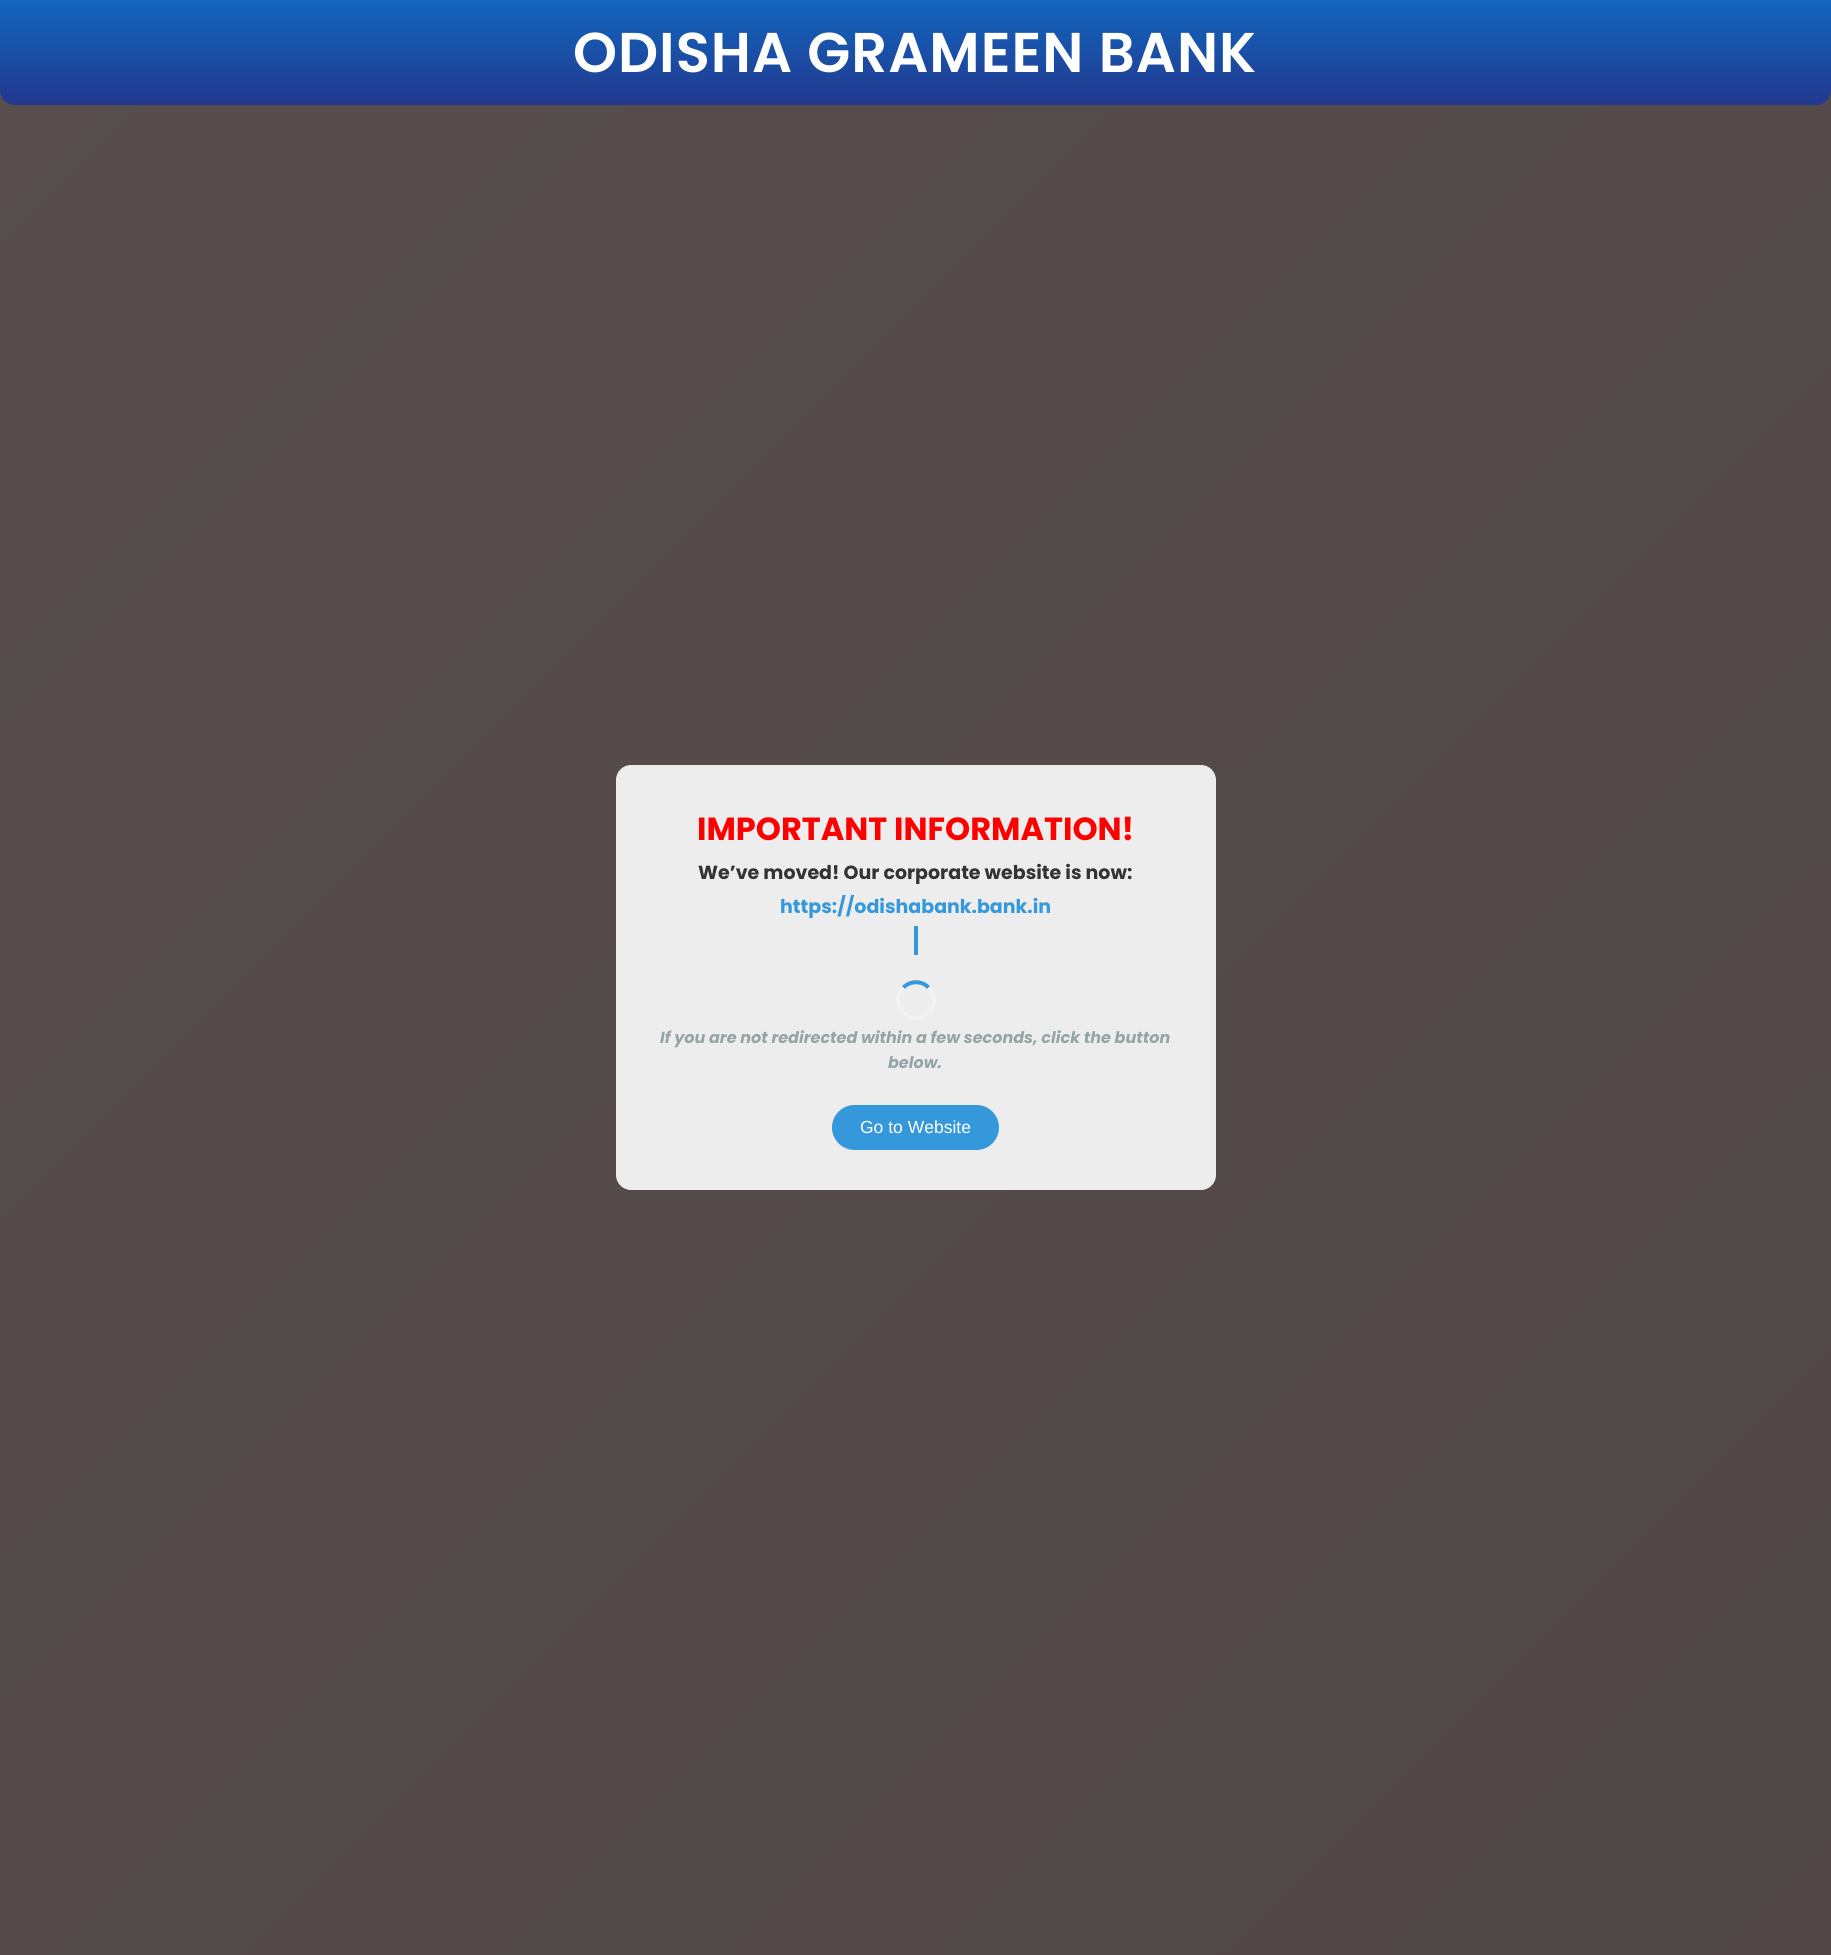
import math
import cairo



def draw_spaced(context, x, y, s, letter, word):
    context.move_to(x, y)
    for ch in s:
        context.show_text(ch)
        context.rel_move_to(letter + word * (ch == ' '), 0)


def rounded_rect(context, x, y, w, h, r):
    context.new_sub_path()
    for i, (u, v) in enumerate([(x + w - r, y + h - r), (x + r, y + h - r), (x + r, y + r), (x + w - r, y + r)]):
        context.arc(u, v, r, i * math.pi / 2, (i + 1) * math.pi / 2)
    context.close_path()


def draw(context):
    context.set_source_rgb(1, 1, 1)
    context.paint()
    gradient = cairo.LinearGradient(-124, 124, 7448, 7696)
    gradient.add_color_stop_rgba(0, 88 / 255, 78 / 255, 78 / 255, 1)
    gradient.add_color_stop_rgba(1, 54 / 255, 47 / 255, 47 / 255, 1)
    context.set_source(gradient)
    context.rectangle(0, 90, 1831, 1865)
    context.fill()
    gradient = cairo.LinearGradient(916, 105, 916, 0)
    gradient.add_color_stop_rgba(0, 35 / 255, 56 / 255, 142 / 255, 1)
    gradient.add_color_stop_rgba(1, 17 / 255, 102 / 255, 191 / 255, 1)
    context.set_source(gradient)
    context.new_path()
    context.move_to(0, 0)
    context.line_to(1831, 0)
    context.line_to(1831, 90)
    context.curve_to(1831, 98.5, 1824.5, 105, 1816, 105)
    context.line_to(15, 105)
    context.curve_to(6.5, 105, 0, 98.5, 0, 90)
    context.close_path()
    context.fill()
    context.set_source_rgba(1, 1, 1, 0.9)
    rounded_rect(context, 616, 765, 600, 425, 15)
    context.fill()
    context.set_source_rgb(52 / 255, 152 / 255, 219 / 255)
    context.rectangle(914, 926, 4, 29)
    context.fill()
    context.new_path()
    context.move_to(903.5, 987.5)
    context.curve_to(910, 980.5, 922, 980.5, 928.5, 987.5)
    context.set_line_width(4)
    context.stroke()
    context.new_path()
    context.move_to(928.5, 987.5)
    context.curve_to(932, 990.5, 934, 995.5, 934, 1000)
    context.curve_to(934, 1021.5, 902.5, 1024.5, 898.5, 1003.5)
    context.curve_to(897, 997.5, 899, 991.5, 903.5, 987.5)
    context.set_source_rgba(1, 1, 1, 0.3)
    context.stroke()
    context.set_source_rgb(52 / 255, 152 / 255, 219 / 255)
    rounded_rect(context, 832, 1105, 167, 45, 22.5)
    context.fill()
    context.select_font_face("Poppins SemiBold")
    context.set_font_size(56)
    context.set_source_rgb(1, 1, 1)
    draw_spaced(context, 573, 72, "ODISHA GRAMEEN BANK", 1, 0)
    context.select_font_face("Poppins", cairo.FontSlant.NORMAL, cairo.FontWeight.BOLD)
    context.set_font_size(32)
    context.set_source_rgb(1, 0, 0)
    context.move_to(697, 840)
    context.show_text("IMPORTANT INFORMATION!")
    context.set_font_size(19)
    context.set_source_rgb(51 / 255, 51 / 255, 51 / 255)
    context.move_to(698, 879)
    context.show_text("We’ve moved! Our corporate website is now:")
    context.set_source_rgb(52 / 255, 152 / 255, 219 / 255)
    context.move_to(780, 913)
    context.show_text("https://odishabank.bank.in")
    context.select_font_face("Poppins", cairo.FontSlant.ITALIC, cairo.FontWeight.BOLD)
    context.set_font_size(16)
    context.set_source_rgb(149 / 255, 165 / 255, 166 / 255)
    context.move_to(660, 1043)
    context.show_text("If you are not redirected within a few seconds, click the button")
    context.move_to(888, 1068)
    context.show_text("below.")
    context.select_font_face("Liberation Sans")
    context.set_font_size(17.5)
    context.set_source_rgb(1, 1, 1)
    context.move_to(860, 1133)
    context.show_text("Go to Website")


surface = cairo.ImageSurface(cairo.Format.RGB24, 1831, 1955)
context = cairo.Context(surface)
options = cairo.FontOptions()
options.set_hint_metrics(cairo.HintMetrics.OFF)
options.set_hint_style(cairo.HintStyle.NONE)
context.set_font_options(options)
context.set_miter_limit(4)
draw(context)
surface.write_to_png("out.png")
